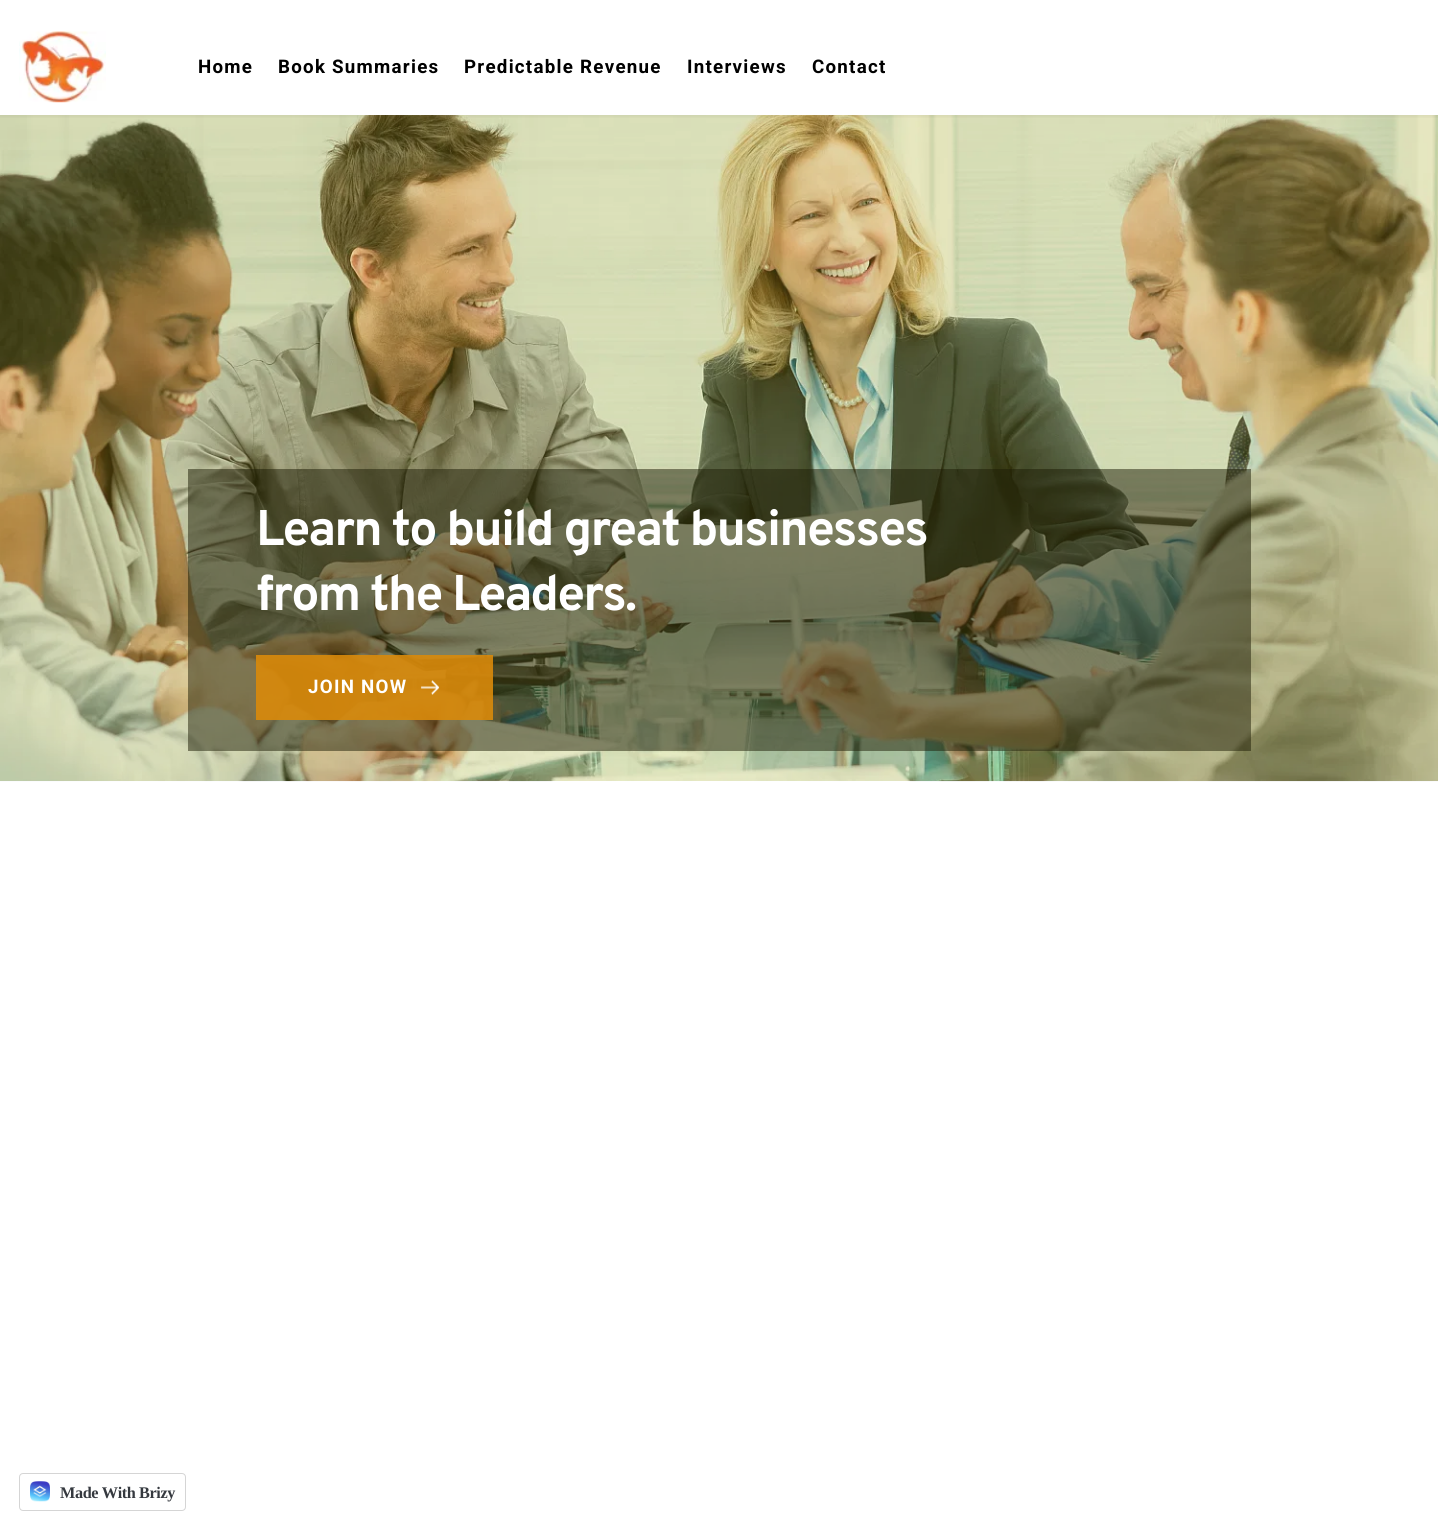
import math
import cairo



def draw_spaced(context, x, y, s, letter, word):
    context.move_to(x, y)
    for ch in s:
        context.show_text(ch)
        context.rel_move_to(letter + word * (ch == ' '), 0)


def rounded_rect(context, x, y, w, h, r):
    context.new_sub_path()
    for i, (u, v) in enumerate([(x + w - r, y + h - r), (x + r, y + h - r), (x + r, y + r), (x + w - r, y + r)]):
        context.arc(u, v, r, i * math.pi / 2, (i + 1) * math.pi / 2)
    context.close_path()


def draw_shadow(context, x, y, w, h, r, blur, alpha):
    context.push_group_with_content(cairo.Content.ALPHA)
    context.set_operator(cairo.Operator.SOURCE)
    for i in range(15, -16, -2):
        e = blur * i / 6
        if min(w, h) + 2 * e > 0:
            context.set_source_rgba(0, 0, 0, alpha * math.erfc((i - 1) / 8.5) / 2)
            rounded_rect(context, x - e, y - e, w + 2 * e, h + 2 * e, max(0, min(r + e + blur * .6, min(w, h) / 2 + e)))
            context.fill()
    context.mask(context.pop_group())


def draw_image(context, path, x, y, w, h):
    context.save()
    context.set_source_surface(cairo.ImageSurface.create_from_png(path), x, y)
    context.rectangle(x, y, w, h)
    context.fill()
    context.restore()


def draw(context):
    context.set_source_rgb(1, 1, 1)
    context.paint()
    draw_image(context, "images/2.png", 0, 115, 1438, 667)
    context.save()
    context.rectangle(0, 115, 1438, 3)
    context.clip()
    context.set_source_rgb(0, 0, 0)
    draw_shadow(context, 0, 0, 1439, 115, 0, 3, 0.1)
    context.restore()
    draw_image(context, "images/1.png", 19, 31, 87, 72)
    context.set_source_rgba(29 / 255, 29 / 255, 4 / 255, 0.5)
    context.rectangle(188, 469, 1063, 282)
    context.fill()
    context.set_source_rgba(218 / 255, 138 / 255, 10 / 255, 0.9)
    context.rectangle(256, 655, 237, 65)
    context.fill()
    draw_image(context, "images/3.png", 420, 680, 20, 15)
    rounded_rect(context, 19.5, 1473.5, 166, 37, 3.5)
    context.set_source_rgb(213 / 255, 213 / 255, 213 / 255)
    context.set_line_width(1)
    context.stroke()
    draw_image(context, "images/4.png", 30, 1481, 20, 21)
    context.select_font_face("Roboto", cairo.FontSlant.NORMAL, cairo.FontWeight.BOLD)
    context.set_font_size(18.75)
    context.set_source_rgb(0, 0, 0)
    draw_spaced(context, 198, 73, "Home", 1.25, 0)
    draw_spaced(context, 278, 73, "Book Summaries", 1.25, 0)
    draw_spaced(context, 464, 73, "Predictable Revenue", 1.25, 0)
    draw_spaced(context, 687, 73, "Interviews", 1.25, 0)
    draw_spaced(context, 812, 73, "Contact", 1.25, 0)
    context.select_font_face("Overpass", cairo.FontSlant.NORMAL, cairo.FontWeight.BOLD)
    context.set_font_size(50)
    context.set_source_rgb(1, 1, 1)
    draw_spaced(context, 256, 545, "Learn to build great businesses", -1.9, 0)
    draw_spaced(context, 256, 610, "from the Leaders.", -1.9, 0)
    context.select_font_face("Roboto", cairo.FontSlant.NORMAL, cairo.FontWeight.BOLD)
    context.set_font_size(18.75)
    draw_spaced(context, 308, 693, "JOIN NOW", 1.25, 0)
    context.select_font_face("Liberation Serif", cairo.FontSlant.NORMAL, cairo.FontWeight.BOLD)
    context.set_font_size(16.25)
    context.set_source_rgb(53 / 255, 57 / 255, 63 / 255)
    draw_spaced(context, 60, 1498, "Made With Brizy", -0.4, 0)


surface = cairo.ImageSurface(cairo.Format.RGB24, 1438, 1530)
context = cairo.Context(surface)
options = cairo.FontOptions()
options.set_hint_metrics(cairo.HintMetrics.OFF)
options.set_hint_style(cairo.HintStyle.NONE)
context.set_font_options(options)
context.set_miter_limit(4)
draw(context)
surface.write_to_png("out.png")
